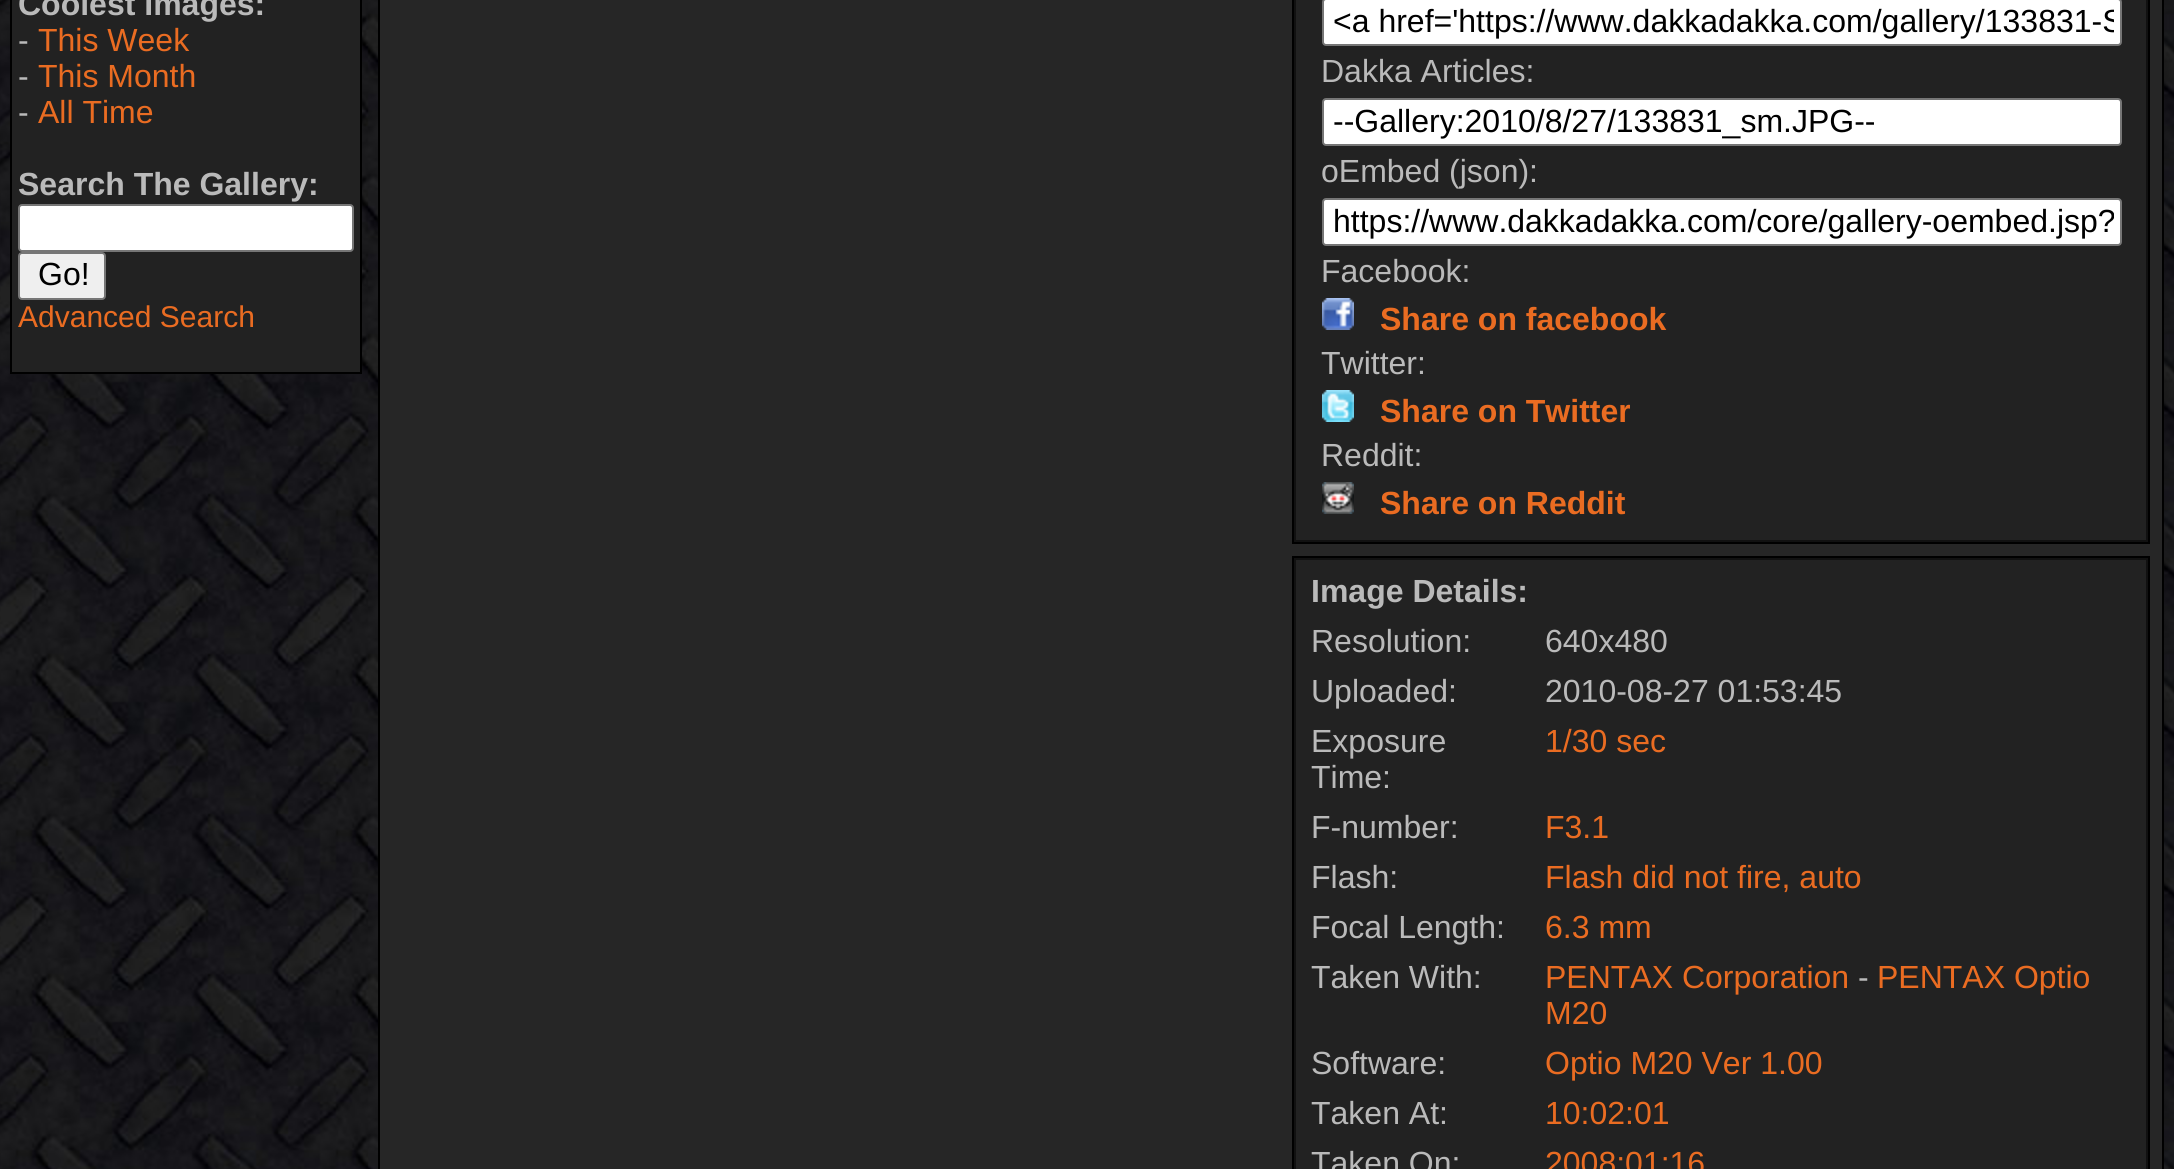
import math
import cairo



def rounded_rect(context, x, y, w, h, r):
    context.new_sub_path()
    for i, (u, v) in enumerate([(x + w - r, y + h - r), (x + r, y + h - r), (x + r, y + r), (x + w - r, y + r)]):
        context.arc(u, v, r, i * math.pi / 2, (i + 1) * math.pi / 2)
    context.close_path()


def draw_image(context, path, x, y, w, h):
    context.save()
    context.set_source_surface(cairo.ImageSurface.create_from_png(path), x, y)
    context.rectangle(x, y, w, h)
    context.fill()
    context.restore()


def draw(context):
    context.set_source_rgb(1, 1, 1)
    context.paint()
    draw_image(context, "images/1.png", 0, 0, 2174, 1169)
    context.rectangle(11, -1, 350, 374)
    context.set_source_rgb(0, 0, 0)
    context.stroke()
    context.set_source_rgb(34 / 255, 34 / 255, 34 / 255)
    context.rectangle(12, 0, 348, 372)
    context.fill()
    context.set_source_rgb(1, 1, 1)
    rounded_rect(context, 19, 205, 334, 46, 3)
    context.fill_preserve()
    context.set_source_rgb(118 / 255, 118 / 255, 118 / 255)
    context.stroke()
    context.set_source_rgb(239 / 255, 239 / 255, 239 / 255)
    rounded_rect(context, 19, 253, 86, 46, 3)
    context.fill_preserve()
    context.set_source_rgb(118 / 255, 118 / 255, 118 / 255)
    context.stroke()
    context.set_source_rgb(0, 0, 0)
    context.rectangle(2162, 0, 2, 1169)
    context.fill()
    context.rectangle(378, 0, 2, 1169)
    context.fill()
    context.set_source_rgb(38 / 255, 38 / 255, 38 / 255)
    context.rectangle(380, 0, 1782, 1169)
    context.fill()
    context.set_source_rgb(17 / 255, 17 / 255, 17 / 255)
    context.rectangle(1293, -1, 856, 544)
    context.fill_preserve()
    context.set_source_rgb(0, 0, 0)
    context.stroke()
    context.set_source_rgb(34 / 255, 34 / 255, 34 / 255)
    context.rectangle(1296, 0, 850, 540)
    context.fill()
    context.set_source_rgb(1, 1, 1)
    rounded_rect(context, 1323, -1, 798, 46, 3)
    context.fill_preserve()
    context.set_source_rgb(118 / 255, 118 / 255, 118 / 255)
    context.stroke()
    context.set_source_rgb(1, 1, 1)
    rounded_rect(context, 1323, 99, 798, 46, 3)
    context.fill_preserve()
    context.set_source_rgb(118 / 255, 118 / 255, 118 / 255)
    context.stroke()
    context.set_source_rgb(1, 1, 1)
    rounded_rect(context, 1323, 199, 798, 46, 3)
    context.fill_preserve()
    context.set_source_rgb(118 / 255, 118 / 255, 118 / 255)
    context.stroke()
    draw_image(context, "images/2.png", 1322, 298, 32, 32)
    draw_image(context, "images/3.png", 1322, 390, 32, 32)
    draw_image(context, "images/4.png", 1322, 482, 32, 32)
    context.set_source_rgb(17 / 255, 17 / 255, 17 / 255)
    context.rectangle(1293, 557, 856, 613)
    context.fill_preserve()
    context.set_source_rgb(0, 0, 0)
    context.stroke()
    context.set_source_rgb(34 / 255, 34 / 255, 34 / 255)
    context.rectangle(1296, 560, 850, 609)
    context.fill()
    context.select_font_face("Liberation Sans", cairo.FontSlant.NORMAL, cairo.FontWeight.BOLD)
    context.set_font_size(32)
    context.set_source_rgb(186 / 255, 186 / 255, 186 / 255)
    context.move_to(18, 15)
    context.show_text("Coolest Images:")
    context.select_font_face("Liberation Sans")
    context.move_to(18, 51)
    context.show_text("-")
    context.set_source_rgb(234 / 255, 108 / 255, 34 / 255)
    context.move_to(38, 51)
    context.show_text("This Week")
    context.set_source_rgb(186 / 255, 186 / 255, 186 / 255)
    context.move_to(18, 87)
    context.show_text("-")
    context.set_source_rgb(234 / 255, 108 / 255, 34 / 255)
    context.move_to(38, 87)
    context.show_text("This Month")
    context.set_source_rgb(186 / 255, 186 / 255, 186 / 255)
    context.move_to(18, 123)
    context.show_text("-")
    context.set_source_rgb(234 / 255, 108 / 255, 34 / 255)
    context.move_to(38, 123)
    context.show_text("All Time")
    context.select_font_face("Liberation Sans", cairo.FontSlant.NORMAL, cairo.FontWeight.BOLD)
    context.set_source_rgb(186 / 255, 186 / 255, 186 / 255)
    context.move_to(18, 195)
    context.show_text("Search The Gallery:")
    context.select_font_face("Liberation Sans")
    context.set_source_rgb(0, 0, 0)
    context.move_to(38, 285)
    context.show_text("Go!")
    context.set_font_size(30)
    context.set_source_rgb(234 / 255, 108 / 255, 34 / 255)
    context.move_to(18, 327)
    context.show_text("Advanced Search")
    context.save()
    context.rectangle(1330, 4, 784, 36)
    context.clip()
    context.set_font_size(32)
    context.set_source_rgb(0, 0, 0)
    context.move_to(1333, 32)
    context.show_text("<a href='https://www.dakkadakka.com/gallery/133831-S")
    context.restore()
    context.set_font_size(32)
    context.set_source_rgb(186 / 255, 186 / 255, 186 / 255)
    context.move_to(1321, 82)
    context.show_text("Dakka Articles:")
    context.set_source_rgb(0, 0, 0)
    context.move_to(1333, 132)
    context.show_text("--Gallery:2010/8/27/133831_sm.JPG--")
    context.set_source_rgb(186 / 255, 186 / 255, 186 / 255)
    context.move_to(1321, 182)
    context.show_text("oEmbed (json):")
    context.save()
    context.rectangle(1330, 204, 784, 36)
    context.clip()
    context.set_source_rgb(0, 0, 0)
    context.move_to(1333, 232)
    context.show_text("https://www.dakkadakka.com/core/gallery-oembed.jsp?")
    context.restore()
    context.move_to(1321, 282)
    context.show_text("Facebook:")
    context.select_font_face("Liberation Sans", cairo.FontSlant.NORMAL, cairo.FontWeight.BOLD)
    context.set_source_rgb(234 / 255, 108 / 255, 34 / 255)
    context.move_to(1380, 330)
    context.show_text("Share on facebook")
    context.select_font_face("Liberation Sans")
    context.set_source_rgb(186 / 255, 186 / 255, 186 / 255)
    context.move_to(1321, 374)
    context.show_text("Twitter:")
    context.select_font_face("Liberation Sans", cairo.FontSlant.NORMAL, cairo.FontWeight.BOLD)
    context.set_source_rgb(234 / 255, 108 / 255, 34 / 255)
    context.move_to(1380, 422)
    context.show_text("Share on Twitter")
    context.select_font_face("Liberation Sans")
    context.set_source_rgb(186 / 255, 186 / 255, 186 / 255)
    context.move_to(1321, 466)
    context.show_text("Reddit:")
    context.select_font_face("Liberation Sans", cairo.FontSlant.NORMAL, cairo.FontWeight.BOLD)
    context.set_source_rgb(234 / 255, 108 / 255, 34 / 255)
    context.move_to(1380, 514)
    context.show_text("Share on Reddit")
    context.set_source_rgb(186 / 255, 186 / 255, 186 / 255)
    context.move_to(1311, 602)
    context.show_text("Image Details:")
    context.select_font_face("Liberation Sans")
    context.move_to(1311, 652)
    context.show_text("Resolution:")
    context.move_to(1545, 652)
    context.show_text("640x480")
    context.move_to(1311, 702)
    context.show_text("Uploaded:")
    context.move_to(1545, 702)
    context.show_text("2010-08-27 01:53:45")
    context.move_to(1311, 752)
    context.show_text("Exposure")
    context.move_to(1311, 788)
    context.show_text("Time:")
    context.set_source_rgb(234 / 255, 108 / 255, 34 / 255)
    context.move_to(1545, 752)
    context.show_text("1/30 sec")
    context.set_source_rgb(186 / 255, 186 / 255, 186 / 255)
    context.move_to(1311, 838)
    context.show_text("F-number:")
    context.set_source_rgb(234 / 255, 108 / 255, 34 / 255)
    context.move_to(1545, 838)
    context.show_text("F3.1")
    context.set_source_rgb(186 / 255, 186 / 255, 186 / 255)
    context.move_to(1311, 888)
    context.show_text("Flash:")
    context.set_source_rgb(234 / 255, 108 / 255, 34 / 255)
    context.move_to(1545, 888)
    context.show_text("Flash did not fire, auto")
    context.set_source_rgb(186 / 255, 186 / 255, 186 / 255)
    context.move_to(1311, 938)
    context.show_text("Focal Length:")
    context.set_source_rgb(234 / 255, 108 / 255, 34 / 255)
    context.move_to(1545, 938)
    context.show_text("6.3 mm")
    context.set_source_rgb(186 / 255, 186 / 255, 186 / 255)
    context.move_to(1311, 988)
    context.show_text("Taken With:")
    context.set_source_rgb(234 / 255, 108 / 255, 34 / 255)
    context.move_to(1545, 988)
    context.show_text("PENTAX Corporation")
    context.set_source_rgb(186 / 255, 186 / 255, 186 / 255)
    context.move_to(1858, 988)
    context.show_text("-")
    context.set_source_rgb(234 / 255, 108 / 255, 34 / 255)
    context.move_to(1877, 988)
    context.show_text("PENTAX Optio")
    context.move_to(1545, 1024)
    context.show_text("M20")
    context.set_source_rgb(186 / 255, 186 / 255, 186 / 255)
    context.move_to(1311, 1074)
    context.show_text("Software:")
    context.set_source_rgb(234 / 255, 108 / 255, 34 / 255)
    context.move_to(1545, 1074)
    context.show_text("Optio M20 Ver 1.00")
    context.set_source_rgb(186 / 255, 186 / 255, 186 / 255)
    context.move_to(1311, 1124)
    context.show_text("Taken At:")
    context.set_source_rgb(234 / 255, 108 / 255, 34 / 255)
    context.move_to(1545, 1124)
    context.show_text("10:02:01")
    context.set_source_rgb(186 / 255, 186 / 255, 186 / 255)
    context.move_to(1311, 1174)
    context.show_text("Taken On:")
    context.set_source_rgb(234 / 255, 108 / 255, 34 / 255)
    context.move_to(1545, 1174)
    context.show_text("2008:01:16")


surface = cairo.ImageSurface(cairo.Format.RGB24, 2174, 1169)
context = cairo.Context(surface)
options = cairo.FontOptions()
options.set_hint_metrics(cairo.HintMetrics.OFF)
options.set_hint_style(cairo.HintStyle.NONE)
context.set_font_options(options)
context.set_miter_limit(4)
draw(context)
surface.write_to_png("out.png")
